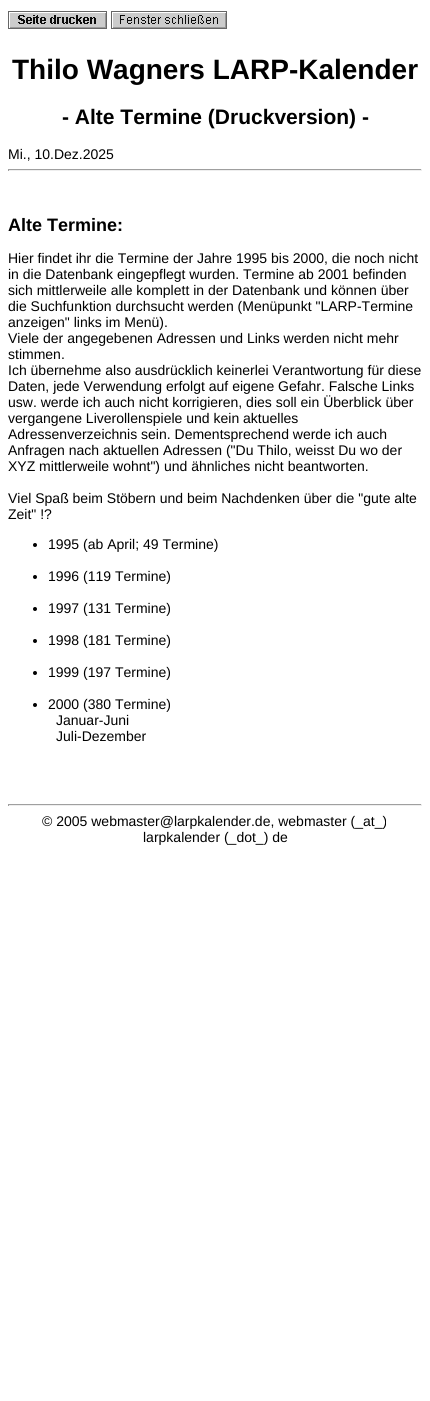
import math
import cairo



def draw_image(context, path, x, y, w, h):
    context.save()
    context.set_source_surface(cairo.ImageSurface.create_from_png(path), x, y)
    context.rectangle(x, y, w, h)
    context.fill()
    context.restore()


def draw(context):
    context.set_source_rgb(1, 1, 1)
    context.paint()
    draw_image(context, "images/1.png", 8, 11, 99, 18)
    draw_image(context, "images/2.png", 111, 11, 116, 18)
    context.set_source_rgb(159 / 255, 159 / 255, 159 / 255)
    context.rectangle(8, 169, 414, 1)
    context.fill()
    context.set_source_rgb(238 / 255, 238 / 255, 238 / 255)
    context.rectangle(421, 169, 1, 2)
    context.fill()
    context.rectangle(8, 170, 414, 1)
    context.fill()
    context.set_source_rgb(159 / 255, 159 / 255, 159 / 255)
    context.rectangle(8, 169, 1, 2)
    context.fill()
    context.set_source_rgb(0, 0, 0)
    context.arc(35, 545, 2, 0, 2 * math.pi)
    context.fill()
    context.arc(35, 577, 2, 0, 2 * math.pi)
    context.fill()
    context.arc(35, 609, 2, 0, 2 * math.pi)
    context.fill()
    context.arc(35, 641, 2, 0, 2 * math.pi)
    context.fill()
    context.arc(35, 673, 2, 0, 2 * math.pi)
    context.fill()
    context.arc(35, 705, 2, 0, 2 * math.pi)
    context.fill()
    context.set_source_rgb(159 / 255, 159 / 255, 159 / 255)
    context.rectangle(8, 804, 414, 1)
    context.fill()
    context.set_source_rgb(238 / 255, 238 / 255, 238 / 255)
    context.rectangle(421, 804, 1, 2)
    context.fill()
    context.rectangle(8, 805, 414, 1)
    context.fill()
    context.set_source_rgb(159 / 255, 159 / 255, 159 / 255)
    context.rectangle(8, 804, 1, 2)
    context.fill()
    context.select_font_face("Liberation Sans", cairo.FontSlant.NORMAL, cairo.FontWeight.BOLD)
    context.set_font_size(28)
    context.set_source_rgb(0, 0, 0)
    context.move_to(12, 79)
    context.show_text("Thilo Wagners LARP-Kalender")
    context.set_font_size(21)
    context.move_to(62, 124)
    context.show_text("- Alte Termine (Druckversion) -")
    context.select_font_face("Liberation Sans")
    context.set_font_size(14)
    context.move_to(8, 159)
    context.show_text("Mi., 10.Dez.2025")
    context.select_font_face("Liberation Sans", cairo.FontSlant.NORMAL, cairo.FontWeight.BOLD)
    context.set_font_size(18)
    context.move_to(8, 231)
    context.show_text("Alte Termine:")
    context.select_font_face("Liberation Sans")
    context.set_font_size(14)
    context.move_to(8, 263)
    context.show_text("Hier findet ihr die Termine der Jahre 1995 bis 2000, die noch nicht")
    context.move_to(8, 279)
    context.show_text("in die Datenbank eingepflegt wurden. Termine ab 2001 befinden")
    context.move_to(8, 295)
    context.show_text("sich mittlerweile alle komplett in der Datenbank und können über")
    context.move_to(8, 311)
    context.show_text("die Suchfunktion durchsucht werden (Menüpunkt \"LARP-Termine")
    context.move_to(8, 327)
    context.show_text("anzeigen\" links im Menü).")
    context.move_to(8, 343)
    context.show_text("Viele der angegebenen Adressen und Links werden nicht mehr")
    context.move_to(8, 359)
    context.show_text("stimmen.")
    context.move_to(8, 375)
    context.show_text("Ich übernehme also ausdrücklich keinerlei Verantwortung für diese")
    context.move_to(8, 391)
    context.show_text("Daten, jede Verwendung erfolgt auf eigene Gefahr. Falsche Links")
    context.move_to(8, 407)
    context.show_text("usw. werde ich auch nicht korrigieren, dies soll ein Überblick über")
    context.move_to(8, 423)
    context.show_text("vergangene Liverollenspiele und kein aktuelles")
    context.move_to(8, 439)
    context.show_text("Adressenverzeichnis sein. Dementsprechend werde ich auch")
    context.move_to(8, 455)
    context.show_text("Anfragen nach aktuellen Adressen (\"Du Thilo, weisst Du wo der")
    context.move_to(8, 471)
    context.show_text("XYZ mittlerweile wohnt\") und ähnliches nicht beantworten.")
    context.move_to(8, 503)
    context.show_text("Viel Spaß beim Stöbern und beim Nachdenken über die \"gute alte")
    context.move_to(8, 519)
    context.show_text("Zeit\" !?")
    context.move_to(48, 549)
    context.show_text("1995 (ab April; 49 Termine)")
    context.move_to(48, 581)
    context.show_text("1996 (119 Termine)")
    context.move_to(48, 613)
    context.show_text("1997 (131 Termine)")
    context.move_to(48, 645)
    context.show_text("1998 (181 Termine)")
    context.move_to(48, 677)
    context.show_text("1999 (197 Termine)")
    context.move_to(48, 709)
    context.show_text("2000 (380 Termine)")
    context.move_to(56, 725)
    context.show_text("Januar-Juni")
    context.move_to(56, 741)
    context.show_text("Juli-Dezember")
    context.move_to(42, 826)
    context.show_text("© 2005 webmaster@larpkalender.de, webmaster (_at_)")
    context.move_to(143, 842)
    context.show_text("larpkalender (_dot_) de")


surface = cairo.ImageSurface(cairo.Format.RGB24, 430, 1401)
context = cairo.Context(surface)
options = cairo.FontOptions()
options.set_hint_metrics(cairo.HintMetrics.OFF)
options.set_hint_style(cairo.HintStyle.NONE)
context.set_font_options(options)
context.set_miter_limit(4)
draw(context)
surface.write_to_png("out.png")
